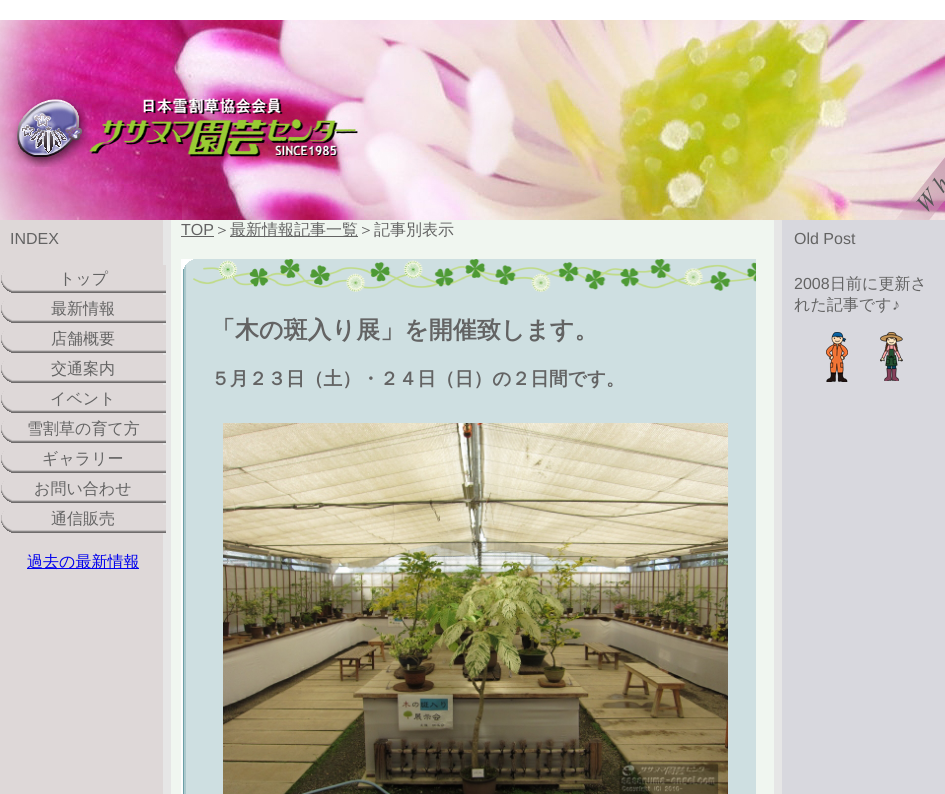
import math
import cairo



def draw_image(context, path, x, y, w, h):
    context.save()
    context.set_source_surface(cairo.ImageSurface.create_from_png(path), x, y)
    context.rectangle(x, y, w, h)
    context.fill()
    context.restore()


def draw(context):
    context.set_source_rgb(1, 1, 1)
    context.paint()
    draw_image(context, "images/1.png", 0, 20, 945, 200)
    draw_image(context, "images/2.png", 0, 220, 945, 574)
    draw_image(context, "images/3.png", 1, 265, 165, 28)
    draw_image(context, "images/3.png", 1, 295, 165, 28)
    draw_image(context, "images/3.png", 1, 325, 165, 28)
    draw_image(context, "images/3.png", 1, 355, 165, 28)
    draw_image(context, "images/3.png", 1, 385, 165, 28)
    draw_image(context, "images/3.png", 1, 415, 165, 28)
    draw_image(context, "images/3.png", 1, 445, 165, 28)
    draw_image(context, "images/3.png", 1, 475, 165, 28)
    draw_image(context, "images/3.png", 1, 505, 165, 28)
    context.set_source_rgb(0, 0, 238 / 255)
    context.rectangle(27, 568, 112, 1)
    context.fill()
    context.set_source_rgb(99 / 255, 99 / 255, 99 / 255)
    context.rectangle(181, 236, 33, 1)
    context.fill()
    context.rectangle(230, 236, 128, 1)
    context.fill()
    draw_image(context, "images/4.png", 181, 259, 575, 535)
    draw_image(context, "images/5.png", 183, 259, 573, 50)
    draw_image(context, "images/6.png", 223, 423, 505, 371)
    draw_image(context, "images/7.png", 826, 332, 22, 50)
    draw_image(context, "images/8.png", 880, 332, 23, 49)
    context.select_font_face("Liberation Sans")
    context.set_font_size(16)
    context.move_to(10, 244)
    context.show_text("INDEX")
    context.select_font_face("WenQuanYi Zen Hei Medium")
    context.move_to(59, 284)
    context.show_text("トップ")
    context.move_to(51, 314)
    context.show_text("最新情報")
    context.move_to(51, 344)
    context.show_text("店舗概要")
    context.move_to(51, 374)
    context.show_text("交通案内")
    context.move_to(50, 404)
    context.show_text("イベント")
    context.move_to(27, 434)
    context.show_text("雪割草の育て方")
    context.move_to(42, 464)
    context.show_text("ギャラリー")
    context.move_to(34, 494)
    context.show_text("お問い合わせ")
    context.move_to(51, 524)
    context.show_text("通信販売")
    context.set_source_rgb(0, 0, 238 / 255)
    context.move_to(27, 567)
    context.show_text("過去の最新情報")
    context.select_font_face("Liberation Sans")
    context.set_source_rgb(99 / 255, 99 / 255, 99 / 255)
    context.move_to(181, 235)
    context.show_text("TOP")
    context.select_font_face("WenQuanYi Zen Hei Medium")
    context.move_to(214, 235)
    context.show_text("＞")
    context.move_to(230, 235)
    context.show_text("最新情報記事一覧＞記事別表示")
    context.select_font_face("WenQuanYi Zen Hei", cairo.FontSlant.NORMAL, cairo.FontWeight.BOLD)
    context.set_font_size(24)
    context.move_to(211, 338)
    context.show_text("「木の斑入り展」を開催致します。")
    context.set_font_size(18.75)
    context.move_to(211, 385)
    context.show_text("５月２３日（土）・２４日（日）の２日間です。")
    context.select_font_face("Liberation Sans")
    context.set_font_size(16)
    context.move_to(794, 244)
    context.show_text("Old Post")
    context.move_to(794, 289)
    context.show_text("2008")
    context.select_font_face("WenQuanYi Zen Hei Medium")
    context.move_to(830, 289)
    context.show_text("日前に更新さ")
    context.move_to(794, 310)
    context.show_text("れた記事です")
    context.select_font_face("Liberation Sans")
    context.move_to(892, 310)
    context.show_text("♪")


surface = cairo.ImageSurface(cairo.Format.RGB24, 945, 794)
context = cairo.Context(surface)
options = cairo.FontOptions()
options.set_hint_metrics(cairo.HintMetrics.OFF)
options.set_hint_style(cairo.HintStyle.NONE)
context.set_font_options(options)
context.set_miter_limit(4)
draw(context)
surface.write_to_png("out.png")
